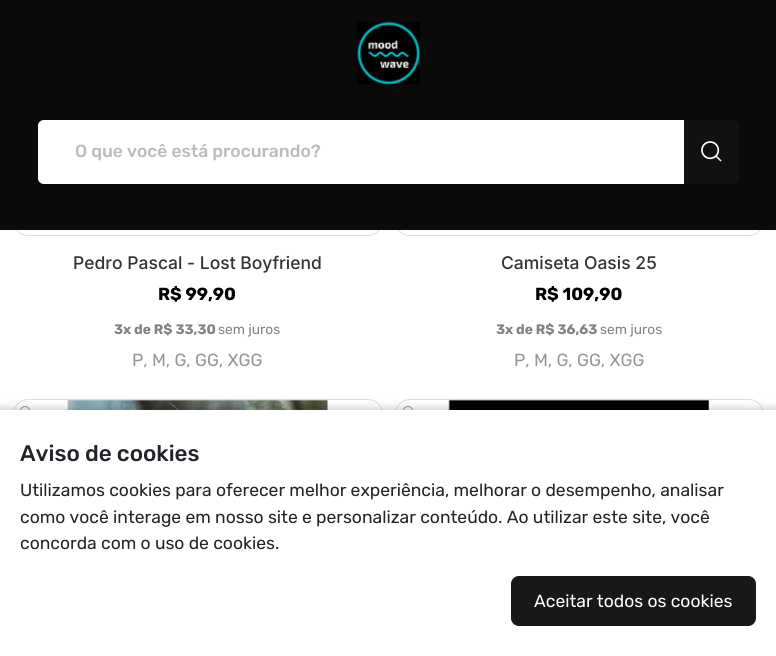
import math
import cairo



def rounded_rect(context, x, y, w, h, r):
    context.new_sub_path()
    for i, (u, v) in enumerate([(x + w - r, y + h - r), (x + r, y + h - r), (x + r, y + r), (x + w - r, y + r)]):
        context.arc(u, v, r, i * math.pi / 2, (i + 1) * math.pi / 2)
    context.close_path()


def draw_shadow(context, x, y, w, h, r, blur, alpha):
    context.push_group_with_content(cairo.Content.ALPHA)
    context.set_operator(cairo.Operator.SOURCE)
    for i in range(15, -16, -2):
        e = blur * i / 6
        if min(w, h) + 2 * e > 0:
            context.set_source_rgba(0, 0, 0, alpha * math.erfc((i - 1) / 8.5) / 2)
            rounded_rect(context, x - e, y - e, w + 2 * e, h + 2 * e, max(0, min(r + e + blur * .6, min(w, h) / 2 + e)))
            context.fill()
    context.mask(context.pop_group())


def draw_image(context, path, x, y, w, h):
    context.save()
    context.set_source_surface(cairo.ImageSurface.create_from_png(path), x, y)
    context.rectangle(x, y, w, h)
    context.fill()
    context.restore()


def draw(context):
    context.set_source_rgb(1, 1, 1)
    context.paint()
    rounded_rect(context, 13.5, -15.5, 369, 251, 14.5)
    context.set_source_rgb(223 / 255, 223 / 255, 223 / 255)
    context.set_line_width(1)
    context.stroke()
    rounded_rect(context, 395.5, -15.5, 368, 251, 14.5)
    context.stroke()
    context.set_source_rgb(10 / 255, 10 / 255, 10 / 255)
    context.rectangle(0, 0, 776, 230)
    context.fill()
    draw_image(context, "images/1.png", 357, 21, 63, 64)
    context.set_source_rgb(1, 1, 1)
    context.new_path()
    context.move_to(44, 120)
    context.line_to(684, 120)
    context.line_to(684, 184)
    context.line_to(44, 184)
    context.curve_to(40.5, 184, 38, 181.5, 38, 178)
    context.line_to(38, 126)
    context.curve_to(38, 122.5, 40.5, 120, 44, 120)
    context.close_path()
    context.fill()
    context.set_source_rgb(17 / 255, 17 / 255, 17 / 255)
    context.new_path()
    context.move_to(684, 120)
    context.line_to(733, 120)
    context.curve_to(736.5, 120, 739, 122.5, 739, 126)
    context.line_to(739, 178)
    context.curve_to(739, 181.5, 736.5, 184, 733, 184)
    context.line_to(684, 184)
    context.close_path()
    context.fill()
    draw_image(context, "images/2.png", 701, 141, 21, 21)
    rounded_rect(context, 13.5, 399.5, 369, 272, 14.5)
    context.set_source_rgb(223 / 255, 223 / 255, 223 / 255)
    context.stroke()
    draw_image(context, "images/3.png", 67, 399, 261, 11)
    context.arc(25, 411, 4.5, 0, 2 * math.pi)
    context.set_source_rgb(150 / 255, 150 / 255, 153 / 255)
    context.stroke()
    rounded_rect(context, 395.5, 399.5, 368, 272, 14.5)
    context.set_source_rgb(223 / 255, 223 / 255, 223 / 255)
    context.stroke()
    draw_image(context, "images/4.png", 448, 399, 261, 11)
    context.arc(408, 411, 4.5, 0, 2 * math.pi)
    context.set_source_rgb(150 / 255, 150 / 255, 153 / 255)
    context.stroke()
    context.set_source_rgb(0, 0, 0)
    draw_shadow(context, -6, 408, 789, 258, 0, 4, 0.2)
    context.set_source_rgb(1, 1, 1)
    context.rectangle(0, 410, 776, 246)
    context.fill()
    context.set_source_rgb(24 / 255, 24 / 255, 27 / 255)
    rounded_rect(context, 511.5, 576.5, 244, 49, 7.5)
    context.fill_preserve()
    context.stroke()
    context.select_font_face("Rubik Medium")
    context.set_font_size(17.5)
    context.set_source_rgb(187 / 255, 187 / 255, 187 / 255)
    context.move_to(75, 157)
    context.show_text("O que você está procurando?")
    context.select_font_face("Inter Medium")
    context.set_source_rgb(51 / 255, 51 / 255, 51 / 255)
    context.move_to(73, 269)
    context.show_text("Pedro Pascal - Lost Boyfriend")
    context.select_font_face("Rubik", cairo.FontSlant.NORMAL, cairo.FontWeight.BOLD)
    context.set_source_rgb(0, 0, 0)
    context.move_to(158, 300)
    context.show_text("R$ 99,90")
    context.set_font_size(13.75)
    context.set_source_rgb(130 / 255, 130 / 255, 130 / 255)
    context.move_to(114, 334)
    context.show_text("3x de R$ 33,30")
    context.select_font_face("Rubik")
    context.move_to(218, 334)
    context.show_text("sem juros")
    context.set_font_size(17.5)
    context.set_source_rgb(150 / 255, 150 / 255, 153 / 255)
    context.move_to(132, 366)
    context.show_text("P, M, G, GG, XGG")
    context.select_font_face("Inter Medium")
    context.set_source_rgb(51 / 255, 51 / 255, 51 / 255)
    context.move_to(501, 269)
    context.show_text("Camiseta Oasis 25")
    context.select_font_face("Rubik", cairo.FontSlant.NORMAL, cairo.FontWeight.BOLD)
    context.set_source_rgb(0, 0, 0)
    context.move_to(535, 300)
    context.show_text("R$ 109,90")
    context.set_font_size(13.75)
    context.set_source_rgb(130 / 255, 130 / 255, 130 / 255)
    context.move_to(496, 334)
    context.show_text("3x de R$ 36,63")
    context.select_font_face("Rubik")
    context.move_to(600, 334)
    context.show_text("sem juros")
    context.set_font_size(17.5)
    context.set_source_rgb(150 / 255, 150 / 255, 153 / 255)
    context.move_to(514, 366)
    context.show_text("P, M, G, GG, XGG")
    context.select_font_face("Rubik Medium")
    context.set_font_size(22.5)
    context.set_source_rgb(33 / 255, 37 / 255, 41 / 255)
    context.move_to(20, 461)
    context.show_text("Aviso de cookies")
    context.select_font_face("Rubik")
    context.set_font_size(17.5)
    context.move_to(20, 496)
    context.show_text("Utilizamos cookies para oferecer melhor experiência, melhorar o desempenho, analisar")
    context.move_to(20, 523)
    context.show_text("como você interage em nosso site e personalizar conteúdo. Ao utilizar este site, você")
    context.move_to(20, 549)
    context.show_text("concorda com o uso de cookies.")
    context.set_source_rgb(1, 1, 1)
    context.move_to(534, 607)
    context.show_text("Aceitar todos os cookies")


surface = cairo.ImageSurface(cairo.Format.RGB24, 776, 656)
context = cairo.Context(surface)
options = cairo.FontOptions()
options.set_hint_metrics(cairo.HintMetrics.OFF)
options.set_hint_style(cairo.HintStyle.NONE)
context.set_font_options(options)
context.set_miter_limit(4)
draw(context)
surface.write_to_png("out.png")
